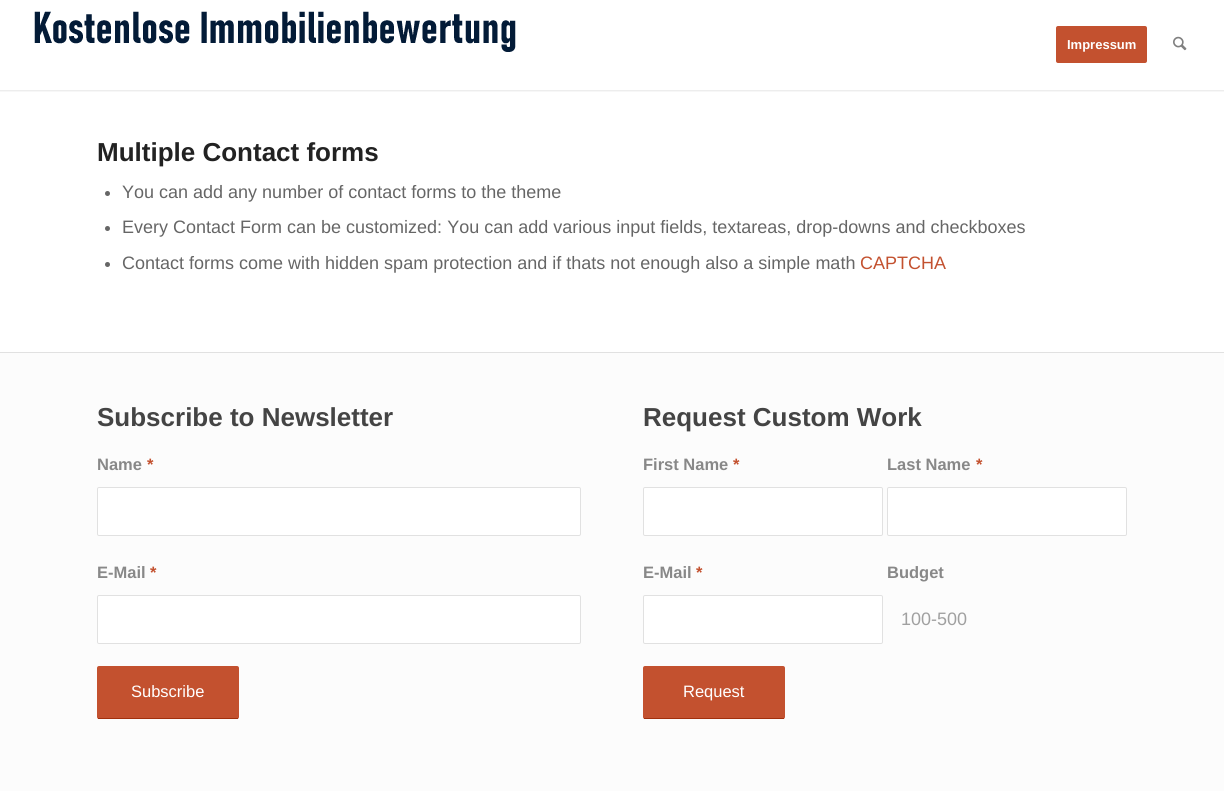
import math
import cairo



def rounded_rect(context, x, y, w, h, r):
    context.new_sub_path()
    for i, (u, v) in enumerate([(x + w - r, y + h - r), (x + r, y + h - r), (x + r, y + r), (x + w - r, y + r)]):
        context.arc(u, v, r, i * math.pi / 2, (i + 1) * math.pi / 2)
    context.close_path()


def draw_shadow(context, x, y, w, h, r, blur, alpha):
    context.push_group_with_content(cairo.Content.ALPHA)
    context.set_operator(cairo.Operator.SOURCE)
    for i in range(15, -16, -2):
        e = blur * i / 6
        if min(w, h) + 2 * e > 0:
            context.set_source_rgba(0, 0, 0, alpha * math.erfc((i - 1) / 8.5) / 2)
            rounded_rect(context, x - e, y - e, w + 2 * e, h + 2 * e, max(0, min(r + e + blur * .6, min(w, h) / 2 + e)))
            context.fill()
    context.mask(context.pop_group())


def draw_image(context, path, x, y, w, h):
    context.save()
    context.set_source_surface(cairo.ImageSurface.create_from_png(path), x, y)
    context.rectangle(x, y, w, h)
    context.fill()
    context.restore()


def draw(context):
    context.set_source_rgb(1, 1, 1)
    context.paint()
    context.save()
    context.rectangle(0, 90, 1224, 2)
    context.clip()
    context.set_source_rgb(0, 0, 0)
    draw_shadow(context, -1, -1, 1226, 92, 0, 1, 0.1)
    context.restore()
    draw_image(context, "images/1.png", 34, 11, 482, 41)
    context.set_source_rgb(195 / 255, 81 / 255, 47 / 255)
    rounded_rect(context, 1057, 27, 89, 35, 1)
    context.fill_preserve()
    context.stroke()
    draw_image(context, "images/2.png", 1173, 36, 14, 15)
    context.set_source_rgb(102 / 255, 102 / 255, 102 / 255)
    context.arc(107.5, 193.5, 2.5, 0, 2 * math.pi)
    context.fill()
    context.arc(107.5, 228.5, 2.5, 0, 2 * math.pi)
    context.fill()
    context.arc(107.5, 264.5, 2.5, 0, 2 * math.pi)
    context.fill()
    context.set_source_rgb(252 / 255, 252 / 255, 252 / 255)
    context.rectangle(0, 353, 1224, 438)
    context.fill()
    context.set_source_rgb(225 / 255, 225 / 255, 225 / 255)
    context.rectangle(0, 352, 1224, 1)
    context.fill()
    context.set_source_rgb(1, 1, 1)
    rounded_rect(context, 97.5, 487.5, 483, 48, 1.5)
    context.fill_preserve()
    context.set_source_rgb(225 / 255, 225 / 255, 225 / 255)
    context.set_line_width(1)
    context.stroke()
    context.set_source_rgb(1, 1, 1)
    rounded_rect(context, 97.5, 595.5, 483, 48, 1.5)
    context.fill_preserve()
    context.set_source_rgb(225 / 255, 225 / 255, 225 / 255)
    context.stroke()
    context.set_source_rgb(195 / 255, 81 / 255, 47 / 255)
    rounded_rect(context, 97, 666, 142, 53, 2)
    context.fill()
    context.set_source_rgb(161 / 255, 48 / 255, 13 / 255)
    context.rectangle(98, 718, 140, 1)
    context.fill()
    context.set_source_rgb(1, 1, 1)
    rounded_rect(context, 643.5, 487.5, 239, 48, 1.5)
    context.fill_preserve()
    context.set_source_rgb(225 / 255, 225 / 255, 225 / 255)
    context.stroke()
    context.set_source_rgb(1, 1, 1)
    rounded_rect(context, 887.5, 487.5, 239, 48, 1.5)
    context.fill_preserve()
    context.set_source_rgb(225 / 255, 225 / 255, 225 / 255)
    context.stroke()
    context.set_source_rgb(1, 1, 1)
    rounded_rect(context, 643.5, 595.5, 239, 48, 1.5)
    context.fill_preserve()
    context.set_source_rgb(225 / 255, 225 / 255, 225 / 255)
    context.stroke()
    context.set_source_rgb(195 / 255, 81 / 255, 47 / 255)
    rounded_rect(context, 643, 666, 142, 53, 2)
    context.fill()
    context.set_source_rgb(161 / 255, 48 / 255, 13 / 255)
    context.rectangle(644, 718, 140, 1)
    context.fill()
    context.select_font_face("Liberation Sans", cairo.FontSlant.NORMAL, cairo.FontWeight.BOLD)
    context.set_font_size(13)
    context.set_source_rgb(1, 1, 1)
    context.move_to(1067, 49)
    context.show_text("Impressum")
    context.set_font_size(26)
    context.set_source_rgb(34 / 255, 34 / 255, 34 / 255)
    context.move_to(97, 161)
    context.show_text("Multiple Contact forms")
    context.select_font_face("Liberation Sans")
    context.set_font_size(18)
    context.set_source_rgb(102 / 255, 102 / 255, 102 / 255)
    context.move_to(122, 198)
    context.show_text("You can add any number of contact forms to the theme")
    context.move_to(122, 233)
    context.show_text("Every Contact Form can be customized: You can add various input fields, textareas, drop-downs and checkboxes")
    context.move_to(122, 269)
    context.show_text("Contact forms come with hidden spam protection and if thats not enough also a simple math")
    context.set_source_rgb(195 / 255, 81 / 255, 47 / 255)
    context.move_to(860, 269)
    context.show_text("CAPTCHA")
    context.select_font_face("Liberation Sans", cairo.FontSlant.NORMAL, cairo.FontWeight.BOLD)
    context.set_font_size(26)
    context.set_source_rgb(68 / 255, 68 / 255, 68 / 255)
    context.move_to(97, 426)
    context.show_text("Subscribe to Newsletter")
    context.set_font_size(16.5)
    context.set_source_rgb(136 / 255, 136 / 255, 136 / 255)
    context.move_to(97, 470)
    context.show_text("Name")
    context.set_source_rgb(195 / 255, 81 / 255, 47 / 255)
    context.move_to(147, 470)
    context.show_text("*")
    context.set_source_rgb(136 / 255, 136 / 255, 136 / 255)
    context.move_to(97, 578)
    context.show_text("E-Mail")
    context.set_source_rgb(195 / 255, 81 / 255, 47 / 255)
    context.move_to(150, 578)
    context.show_text("*")
    context.select_font_face("Liberation Sans")
    context.set_source_rgb(1, 1, 1)
    context.move_to(131, 697)
    context.show_text("Subscribe")
    context.select_font_face("Liberation Sans", cairo.FontSlant.NORMAL, cairo.FontWeight.BOLD)
    context.set_font_size(26)
    context.set_source_rgb(68 / 255, 68 / 255, 68 / 255)
    context.move_to(643, 426)
    context.show_text("Request Custom Work")
    context.set_font_size(16.5)
    context.set_source_rgb(136 / 255, 136 / 255, 136 / 255)
    context.move_to(643, 470)
    context.show_text("First Name")
    context.set_source_rgb(195 / 255, 81 / 255, 47 / 255)
    context.move_to(733, 470)
    context.show_text("*")
    context.set_source_rgb(136 / 255, 136 / 255, 136 / 255)
    context.move_to(887, 470)
    context.show_text("Last Name")
    context.set_source_rgb(195 / 255, 81 / 255, 47 / 255)
    context.move_to(976, 470)
    context.show_text("*")
    context.set_source_rgb(136 / 255, 136 / 255, 136 / 255)
    context.move_to(643, 578)
    context.show_text("E-Mail")
    context.set_source_rgb(195 / 255, 81 / 255, 47 / 255)
    context.move_to(696, 578)
    context.show_text("*")
    context.set_source_rgb(136 / 255, 136 / 255, 136 / 255)
    context.move_to(887, 578)
    context.show_text("Budget")
    context.select_font_face("Liberation Sans")
    context.set_font_size(18)
    context.set_source_rgb(160 / 255, 160 / 255, 160 / 255)
    context.move_to(901, 625)
    context.show_text("100-500")
    context.set_font_size(16.5)
    context.set_source_rgb(1, 1, 1)
    context.move_to(683, 697)
    context.show_text("Request")


surface = cairo.ImageSurface(cairo.Format.RGB24, 1224, 791)
context = cairo.Context(surface)
options = cairo.FontOptions()
options.set_hint_metrics(cairo.HintMetrics.OFF)
options.set_hint_style(cairo.HintStyle.NONE)
context.set_font_options(options)
context.set_miter_limit(4)
draw(context)
surface.write_to_png("out.png")
